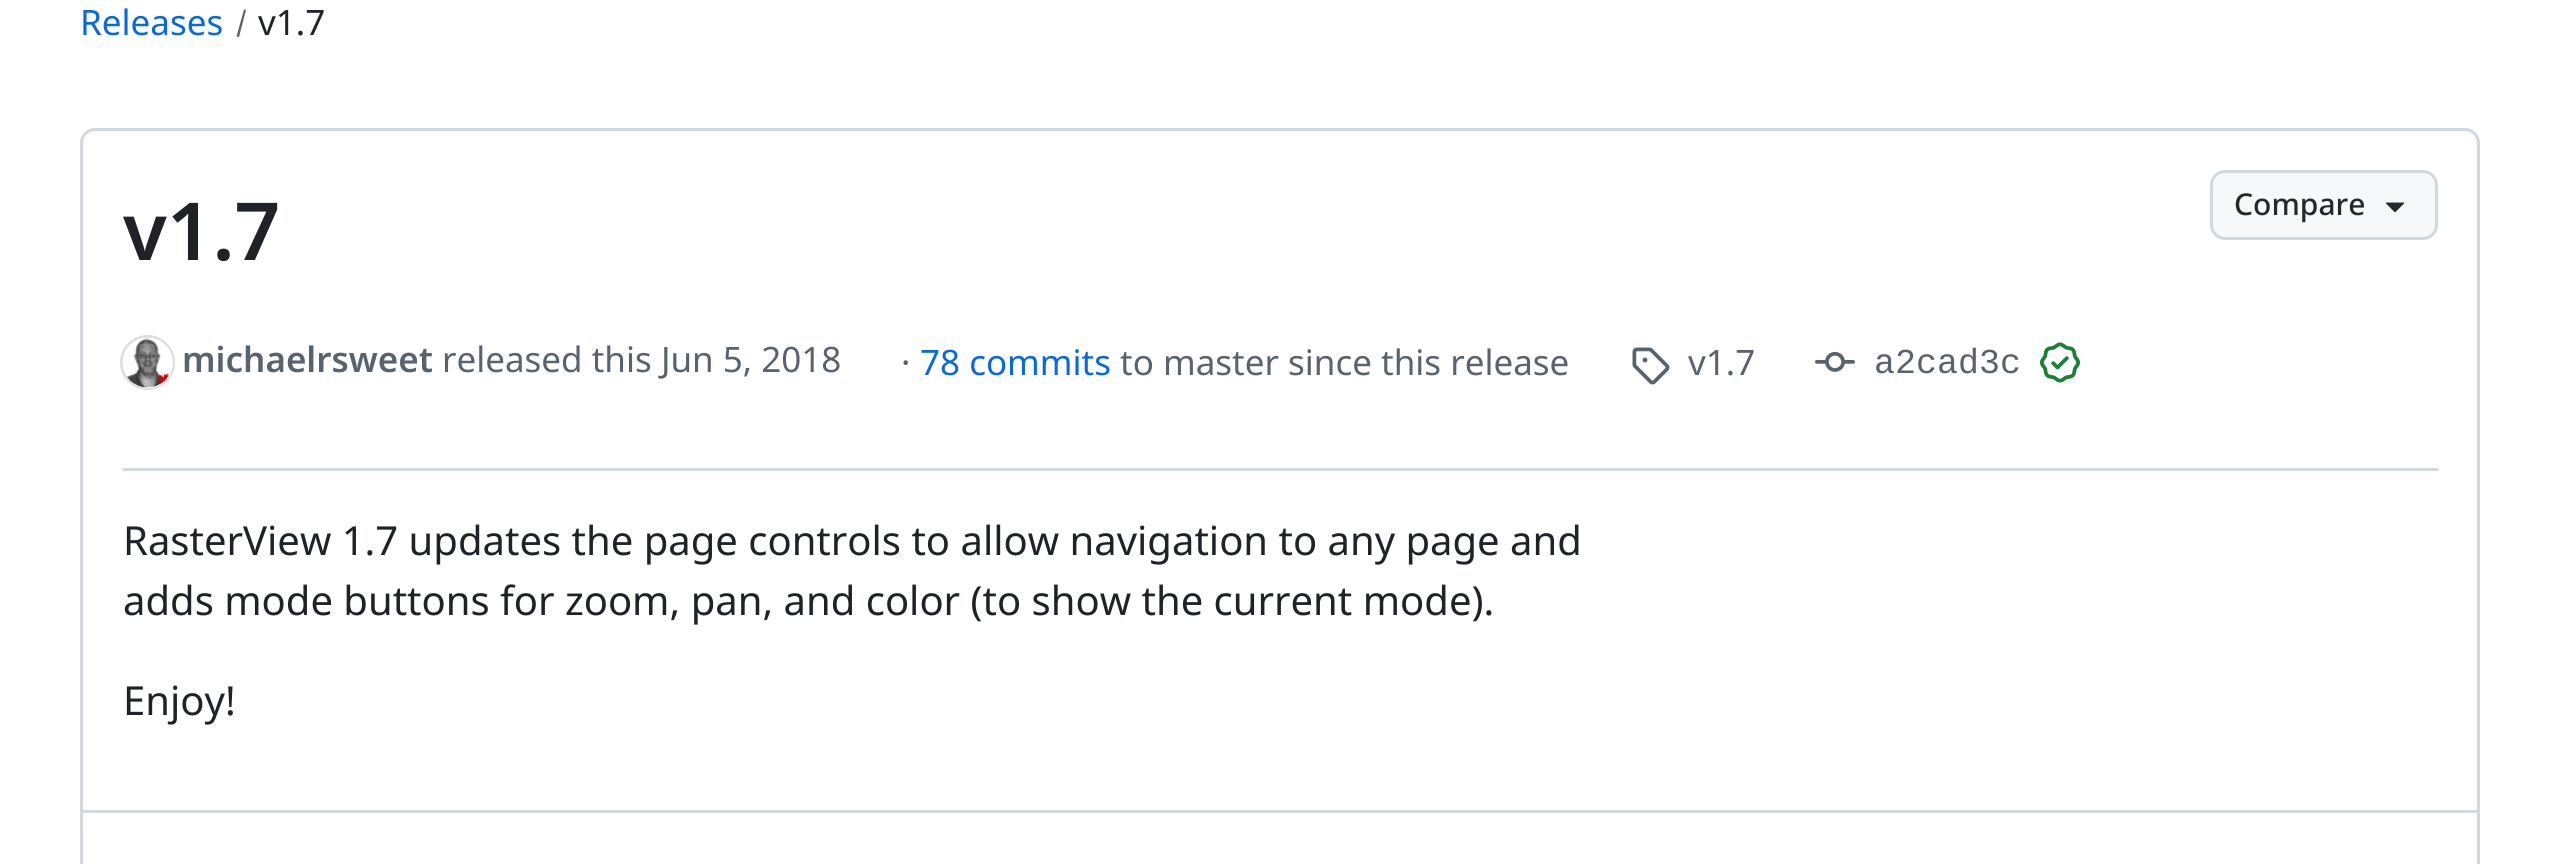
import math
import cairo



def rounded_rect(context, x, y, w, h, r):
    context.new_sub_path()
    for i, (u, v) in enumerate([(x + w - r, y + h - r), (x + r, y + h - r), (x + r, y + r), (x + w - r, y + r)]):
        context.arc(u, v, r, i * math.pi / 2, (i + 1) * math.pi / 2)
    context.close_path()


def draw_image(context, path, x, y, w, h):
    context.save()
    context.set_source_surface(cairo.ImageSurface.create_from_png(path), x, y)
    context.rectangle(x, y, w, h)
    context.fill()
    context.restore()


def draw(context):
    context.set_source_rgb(1, 1, 1)
    context.paint()
    context.set_source_rgb(89 / 255, 99 / 255, 110 / 255)
    context.new_path()
    context.move_to(244, 9.5)
    context.line_to(246, 10)
    context.line_to(239, 37)
    context.line_to(236.5, 36.5)
    context.close_path()
    context.fill()
    rounded_rect(context, 81.5, 129.5, 2397, 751, 13.5)
    context.set_source_rgb(209 / 255, 217 / 255, 224 / 255)
    context.set_line_width(3)
    context.stroke()
    context.rectangle(83, 810, 2395, 3)
    context.fill()
    context.set_source_rgb(246 / 255, 248 / 255, 250 / 255)
    rounded_rect(context, 2211.5, 171.5, 225, 67, 13.5)
    context.fill_preserve()
    context.set_source_rgb(209 / 255, 217 / 255, 224 / 255)
    context.stroke()
    draw_image(context, "images/1.png", 2385, 202, 20, 11)
    context.rectangle(123, 468, 2315, 3)
    context.fill()
    context.arc(147.5, 362.5, 26, 0, 2 * math.pi)
    context.set_source_rgb(221 / 255, 222 / 255, 223 / 255)
    context.stroke()
    context.set_source_rgb(1, 1, 1)
    context.arc(148, 363, 25, 0, 2 * math.pi)
    context.fill()
    draw_image(context, "images/2.png", 122, 337, 48, 51)
    draw_image(context, "images/3.png", 1632, 347, 38, 38)
    draw_image(context, "images/4.png", 1815, 351, 40, 21)
    draw_image(context, "images/5.png", 2040, 342, 40, 41)
    context.select_font_face("Noto Sans")
    context.set_font_size(35)
    context.set_source_rgb(9 / 255, 105 / 255, 218 / 255)
    context.move_to(80, 35)
    context.show_text("Releases")
    context.set_source_rgb(31 / 255, 35 / 255, 40 / 255)
    context.move_to(258, 35)
    context.show_text("v1.7")
    context.select_font_face("Noto Sans SemiBold")
    context.set_font_size(80)
    context.move_to(123, 260)
    context.show_text("v1.7")
    context.select_font_face("Noto Sans Medium")
    context.set_font_size(30)
    context.set_source_rgb(37 / 255, 41 / 255, 46 / 255)
    context.move_to(2234, 215)
    context.show_text("Compare")
    context.select_font_face("Noto Sans SemiBold")
    context.set_font_size(35)
    context.set_source_rgb(89 / 255, 99 / 255, 110 / 255)
    context.move_to(182, 372)
    context.show_text("michaelrsweet")
    context.select_font_face("Noto Sans")
    context.move_to(442, 372)
    context.show_text("released this Jun 5, 2018")
    context.move_to(901, 375)
    context.show_text("·")
    context.set_source_rgb(9 / 255, 105 / 255, 218 / 255)
    context.move_to(920, 375)
    context.show_text("78 commits")
    context.set_source_rgb(89 / 255, 99 / 255, 110 / 255)
    context.move_to(1120, 375)
    context.show_text("to master since this release")
    context.move_to(1688, 375)
    context.show_text("v1.7")
    context.select_font_face("Liberation Mono")
    context.move_to(1874, 373)
    context.show_text("a2cad3c")
    context.select_font_face("Noto Sans")
    context.set_font_size(40)
    context.set_source_rgb(31 / 255, 35 / 255, 40 / 255)
    context.move_to(123, 555)
    context.show_text("RasterView 1.7 updates the page controls to allow navigation to any page and")
    context.move_to(123, 615)
    context.show_text("adds mode buttons for zoom, pan, and color (to show the current mode).")
    context.move_to(123, 715)
    context.show_text("Enjoy!")


surface = cairo.ImageSurface(cairo.Format.RGB24, 2559, 864)
context = cairo.Context(surface)
options = cairo.FontOptions()
options.set_hint_metrics(cairo.HintMetrics.OFF)
options.set_hint_style(cairo.HintStyle.NONE)
context.set_font_options(options)
context.set_miter_limit(4)
draw(context)
surface.write_to_png("out.png")
